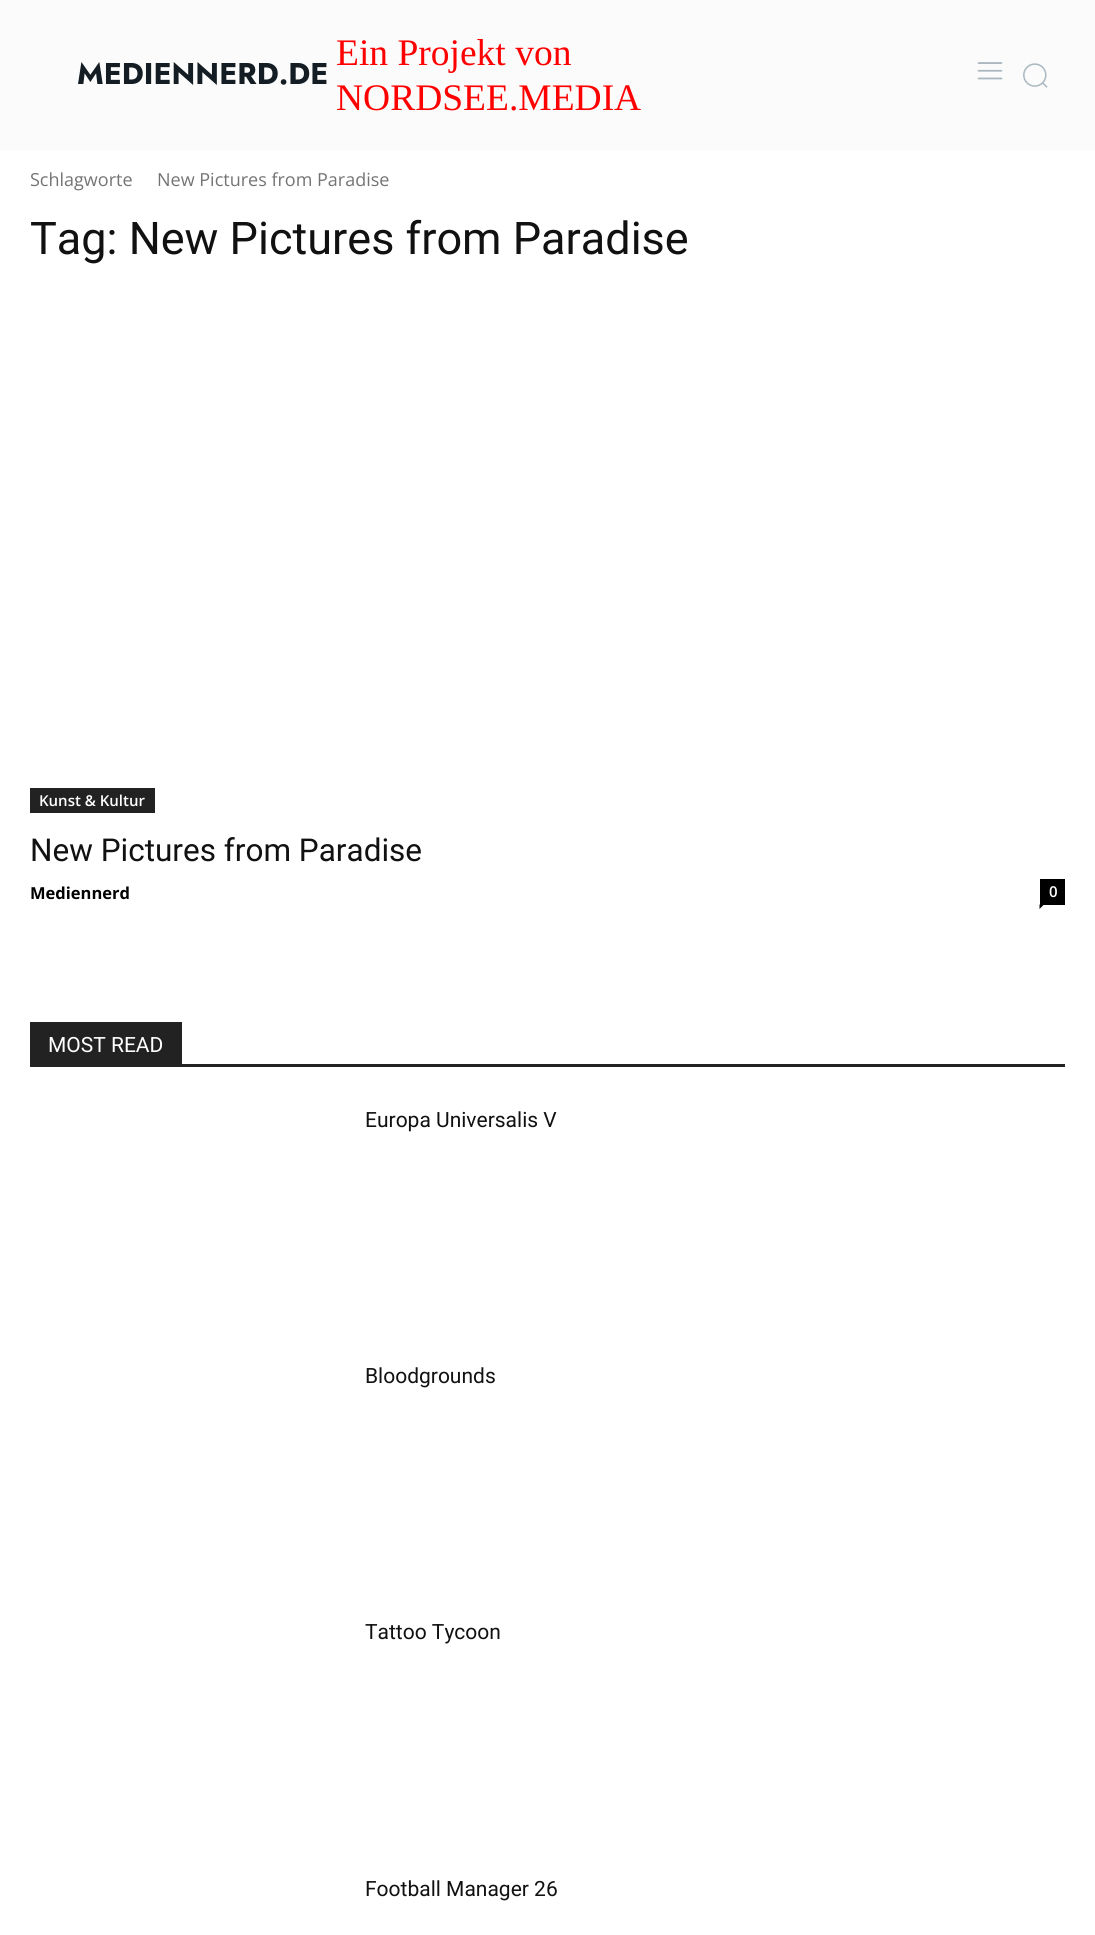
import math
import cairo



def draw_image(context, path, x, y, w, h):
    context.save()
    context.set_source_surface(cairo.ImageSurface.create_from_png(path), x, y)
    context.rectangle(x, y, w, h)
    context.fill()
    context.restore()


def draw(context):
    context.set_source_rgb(1, 1, 1)
    context.paint()
    context.set_source_rgb(251 / 255, 251 / 255, 251 / 255)
    context.rectangle(0, 0, 1095, 150)
    context.fill()
    draw_image(context, "images/1.png", 977, 62, 26, 18)
    draw_image(context, "images/2.png", 1023, 63, 25, 25)
    context.set_source_rgb(34 / 255, 34 / 255, 34 / 255)
    context.rectangle(30, 788, 125, 25)
    context.fill()
    context.set_source_rgb(0, 0, 0)
    context.rectangle(1040, 879, 25, 26)
    context.fill()
    context.new_path()
    context.move_to(1039.5, 904.5)
    context.line_to(1044, 904.5)
    context.line_to(1039.5, 909)
    context.close_path()
    context.fill()
    context.set_source_rgb(34 / 255, 34 / 255, 34 / 255)
    context.rectangle(30, 1064, 1035, 3)
    context.fill()
    context.rectangle(30, 1022, 152, 42)
    context.fill()
    context.select_font_face("Jost", cairo.FontSlant.NORMAL, cairo.FontWeight.BOLD)
    context.set_font_size(30)
    context.set_source_rgb(19 / 255, 29 / 255, 35 / 255)
    context.move_to(77, 84)
    context.show_text("MEDIENNERD.DE")
    context.select_font_face("Liberation Serif")
    context.set_font_size(37.5)
    context.set_source_rgb(1, 0, 0)
    context.move_to(336, 65)
    context.show_text("Ein Projekt von")
    context.move_to(336, 110)
    context.show_text("NORDSEE.MEDIA")
    context.select_font_face("Open Sans")
    context.set_font_size(18)
    context.set_source_rgb(116 / 255, 116 / 255, 116 / 255)
    context.move_to(30, 186)
    context.show_text("Schlagworte")
    context.move_to(157, 186)
    context.show_text("New Pictures from Paradise")
    context.select_font_face("Roboto")
    context.set_font_size(45)
    context.set_source_rgb(17 / 255, 17 / 255, 17 / 255)
    context.move_to(30, 254)
    context.show_text("Tag: New Pictures from Paradise")
    context.select_font_face("Open Sans SemiBold")
    context.set_font_size(15)
    context.set_source_rgb(1, 1, 1)
    context.move_to(39, 806)
    context.show_text("Kunst & Kultur")
    context.select_font_face("Roboto")
    context.set_font_size(31.5)
    context.set_source_rgb(17 / 255, 17 / 255, 17 / 255)
    context.move_to(30, 861)
    context.show_text("New Pictures from Paradise")
    context.select_font_face("Open Sans", cairo.FontSlant.NORMAL, cairo.FontWeight.BOLD)
    context.set_font_size(16.5)
    context.set_source_rgb(0, 0, 0)
    context.move_to(30, 899)
    context.show_text("Mediennerd")
    context.select_font_face("Open Sans SemiBold")
    context.set_font_size(15)
    context.set_source_rgb(1, 1, 1)
    context.move_to(1049, 897)
    context.show_text("0")
    context.select_font_face("Roboto")
    context.set_font_size(21)
    context.move_to(48, 1052)
    context.show_text("MOST READ")
    context.set_source_rgb(17 / 255, 17 / 255, 17 / 255)
    context.move_to(365, 1127)
    context.show_text("Europa Universalis V")
    context.move_to(365, 1383)
    context.show_text("Bloodgrounds")
    context.move_to(365, 1639)
    context.show_text("Tattoo Tycoon")
    context.move_to(365, 1896)
    context.show_text("Football Manager 26")


surface = cairo.ImageSurface(cairo.Format.RGB24, 1095, 1935)
context = cairo.Context(surface)
options = cairo.FontOptions()
options.set_hint_metrics(cairo.HintMetrics.OFF)
options.set_hint_style(cairo.HintStyle.NONE)
context.set_font_options(options)
context.set_miter_limit(4)
draw(context)
surface.write_to_png("out.png")
